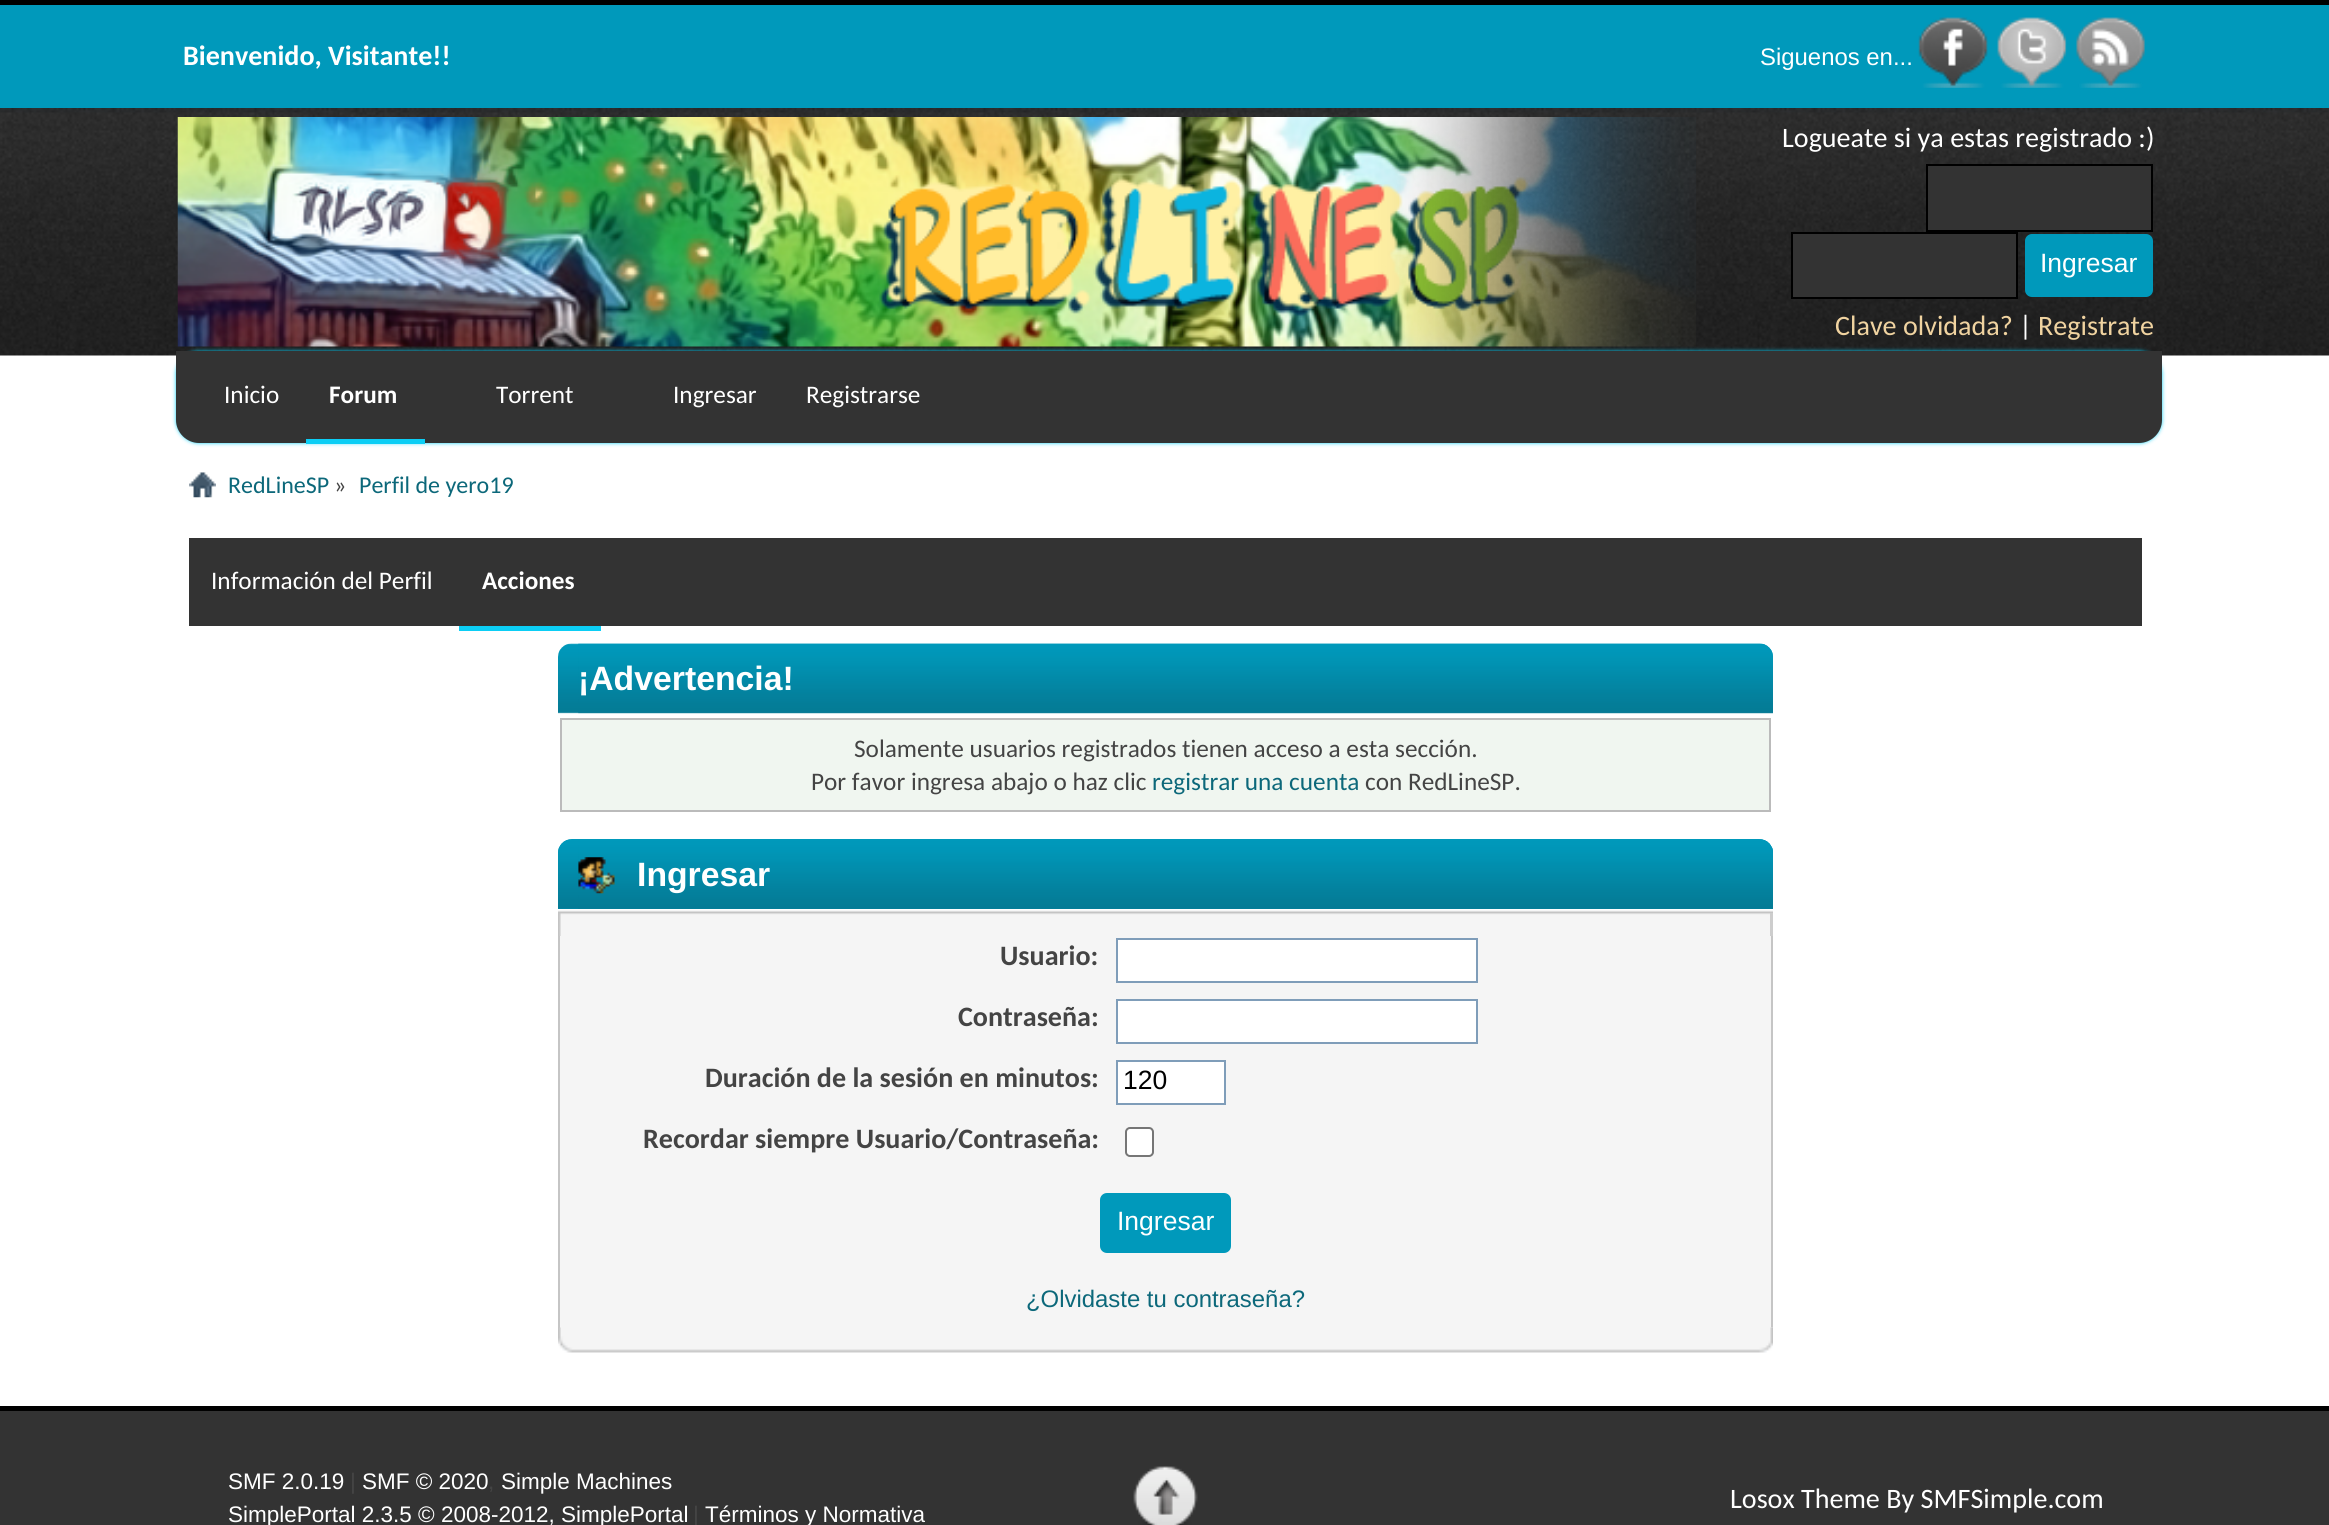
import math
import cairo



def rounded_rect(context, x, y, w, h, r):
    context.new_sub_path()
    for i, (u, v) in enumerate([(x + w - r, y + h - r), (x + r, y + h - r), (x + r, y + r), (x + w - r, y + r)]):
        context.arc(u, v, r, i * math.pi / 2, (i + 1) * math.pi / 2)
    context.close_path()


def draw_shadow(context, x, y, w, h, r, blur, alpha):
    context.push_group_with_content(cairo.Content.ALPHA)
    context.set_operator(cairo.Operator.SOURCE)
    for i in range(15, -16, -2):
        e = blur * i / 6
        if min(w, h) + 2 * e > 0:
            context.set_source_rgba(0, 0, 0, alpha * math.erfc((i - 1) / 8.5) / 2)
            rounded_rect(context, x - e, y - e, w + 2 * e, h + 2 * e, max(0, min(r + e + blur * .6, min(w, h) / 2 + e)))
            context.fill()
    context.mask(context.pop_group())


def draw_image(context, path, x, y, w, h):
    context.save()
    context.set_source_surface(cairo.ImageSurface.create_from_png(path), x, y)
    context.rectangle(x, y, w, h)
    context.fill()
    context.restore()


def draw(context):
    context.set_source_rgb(1, 1, 1)
    context.paint()
    context.set_source_rgb(0, 153 / 255, 187 / 255)
    context.rectangle(0, 5, 2329, 103)
    context.fill()
    context.set_source_rgb(0, 0, 0)
    context.rectangle(0, 0, 2329, 5)
    context.fill()
    draw_image(context, "images/1.png", 1918, 17, 70, 71)
    draw_image(context, "images/2.png", 1997, 17, 70, 71)
    draw_image(context, "images/3.png", 2076, 17, 69, 71)
    draw_image(context, "images/4.png", 0, 108, 2329, 248)
    context.set_source_rgb(12 / 255, 206 / 255, 245 / 255)
    draw_shadow(context, 176, 351, 1986, 92, 23, 2, 1)
    draw_image(context, "images/5.png", 177, 117, 1519, 230)
    context.set_source_rgb(51 / 255, 51 / 255, 51 / 255)
    context.rectangle(1927, 165, 225, 66)
    context.fill_preserve()
    context.set_source_rgb(0, 0, 0)
    context.stroke()
    context.set_source_rgb(51 / 255, 51 / 255, 51 / 255)
    context.rectangle(1792, 233, 225, 65)
    context.fill_preserve()
    context.set_source_rgb(0, 0, 0)
    context.stroke()
    context.set_source_rgb(0, 153 / 255, 187 / 255)
    rounded_rect(context, 2025, 234, 128, 63, 7)
    context.fill()
    context.set_source_rgb(51 / 255, 51 / 255, 51 / 255)
    context.new_path()
    context.move_to(176, 351)
    context.line_to(2162, 351)
    context.line_to(2162, 420)
    context.curve_to(2162, 432.5, 2151.5, 443, 2139, 443)
    context.line_to(199, 443)
    context.curve_to(186.5, 443, 176, 432.5, 176, 420)
    context.close_path()
    context.fill()
    context.set_source_rgb(12 / 255, 206 / 255, 245 / 255)
    context.rectangle(306, 439, 119, 5)
    context.fill()
    draw_image(context, "images/6.png", 189, 472, 27, 26)
    context.set_source_rgb(51 / 255, 51 / 255, 51 / 255)
    context.rectangle(189, 538, 1953, 88)
    context.fill()
    context.set_source_rgb(12 / 255, 206 / 255, 245 / 255)
    context.rectangle(459, 626, 142, 5)
    context.fill()
    draw_image(context, "images/7.png", 558, 643, 1215, 71)
    draw_image(context, "images/8.png", 578, 643, 1195, 71)
    context.set_source_rgb(240 / 255, 246 / 255, 240 / 255)
    context.rectangle(561, 719, 1209, 92)
    context.fill_preserve()
    context.set_source_rgb(187 / 255, 187 / 255, 187 / 255)
    context.stroke()
    context.set_source_rgb(0, 153 / 255, 187 / 255)
    context.new_path()
    context.move_to(572, 839)
    context.line_to(1759, 839)
    context.curve_to(1766.5, 839, 1773, 845.5, 1773, 853)
    context.line_to(1773, 909)
    context.line_to(558, 909)
    context.line_to(558, 853)
    context.curve_to(558, 845.5, 564.5, 839, 572, 839)
    context.close_path()
    context.fill()
    draw_image(context, "images/9.png", 558, 839, 1215, 70)
    draw_image(context, "images/10.png", 578, 839, 1195, 70)
    draw_image(context, "images/11.png", 578, 857, 37, 37)
    draw_image(context, "images/12.png", 558, 910, 1215, 26)
    context.set_source_rgb(205 / 255, 205 / 255, 205 / 255)
    context.rectangle(1770, 913, 3, 23)
    context.fill()
    context.set_source_rgb(245 / 255, 245 / 255, 245 / 255)
    context.rectangle(560, 936, 1211, 392)
    context.fill()
    context.set_source_rgb(197 / 255, 197 / 255, 197 / 255)
    context.rectangle(1771, 936, 2, 392)
    context.fill()
    context.rectangle(558, 936, 2, 392)
    context.fill()
    context.set_source_rgb(1, 1, 1)
    context.rectangle(1117, 939, 360, 43)
    context.fill_preserve()
    context.set_source_rgb(127 / 255, 157 / 255, 185 / 255)
    context.stroke()
    context.set_source_rgb(1, 1, 1)
    context.rectangle(1117, 1000, 360, 43)
    context.fill_preserve()
    context.set_source_rgb(127 / 255, 157 / 255, 185 / 255)
    context.stroke()
    context.set_source_rgb(1, 1, 1)
    context.rectangle(1117, 1061, 108, 43)
    context.fill_preserve()
    context.set_source_rgb(127 / 255, 157 / 255, 185 / 255)
    context.stroke()
    context.set_source_rgb(1, 1, 1)
    rounded_rect(context, 1126, 1128, 27, 28, 4)
    context.fill_preserve()
    context.set_source_rgb(118 / 255, 118 / 255, 118 / 255)
    context.stroke()
    context.set_source_rgb(0, 153 / 255, 187 / 255)
    rounded_rect(context, 1100, 1193, 131, 60, 7)
    context.fill()
    draw_image(context, "images/13.png", 558, 1327, 1215, 26)
    draw_image(context, "images/14.png", 1759, 1327, 14, 26)
    context.set_source_rgb(51 / 255, 51 / 255, 51 / 255)
    context.rectangle(0, 1411, 2329, 114)
    context.fill()
    context.set_source_rgb(0, 0, 0)
    context.rectangle(0, 1406, 2329, 5)
    context.fill()
    draw_image(context, "images/15.png", 1133, 1466, 65, 59)
    context.select_font_face("Carlito", cairo.FontSlant.NORMAL, cairo.FontWeight.BOLD)
    context.set_font_size(28.1)
    context.set_source_rgb(1, 1, 1)
    context.move_to(183, 65)
    context.show_text("Bienvenido, Visitante!!")
    context.select_font_face("Liberation Sans")
    context.set_font_size(23.9)
    context.move_to(1760, 65)
    context.show_text("Siguenos en...")
    context.select_font_face("Carlito")
    context.set_font_size(28.1)
    context.move_to(1782, 147)
    context.show_text("Logueate si ya estas registrado :)")
    context.select_font_face("Liberation Sans")
    context.set_font_size(26.5)
    context.move_to(2040, 272)
    context.show_text("Ingresar")
    context.select_font_face("Carlito")
    context.set_font_size(28.1)
    context.set_source_rgb(240 / 255, 211 / 255, 160 / 255)
    context.move_to(1835, 335)
    context.show_text("Clave olvidada?")
    context.set_source_rgb(1, 1, 1)
    context.move_to(2019, 335)
    context.show_text("|")
    context.set_source_rgb(240 / 255, 211 / 255, 160 / 255)
    context.move_to(2038, 335)
    context.show_text("Registrate")
    context.set_font_size(25.25)
    context.set_source_rgb(1, 1, 1)
    context.move_to(224, 403)
    context.show_text("Inicio")
    context.select_font_face("Carlito", cairo.FontSlant.NORMAL, cairo.FontWeight.BOLD)
    context.move_to(329, 403)
    context.show_text("Forum")
    context.select_font_face("Carlito")
    context.move_to(496, 403)
    context.show_text("Torrent")
    context.move_to(673, 403)
    context.show_text("Ingresar")
    context.move_to(806, 403)
    context.show_text("Registrarse")
    context.set_font_size(24)
    context.set_source_rgb(12 / 255, 104 / 255, 122 / 255)
    context.move_to(228, 493)
    context.show_text("RedLineSP")
    context.set_source_rgb(68 / 255, 68 / 255, 68 / 255)
    context.move_to(334, 493)
    context.show_text("»")
    context.set_source_rgb(12 / 255, 104 / 255, 122 / 255)
    context.move_to(359, 493)
    context.show_text("Perfil de yero19")
    context.set_font_size(25.25)
    context.set_source_rgb(1, 1, 1)
    context.move_to(211, 589)
    context.show_text("Información del Perfil")
    context.select_font_face("Carlito", cairo.FontSlant.NORMAL, cairo.FontWeight.BOLD)
    context.move_to(482, 589)
    context.show_text("Acciones")
    context.select_font_face("Liberation Sans", cairo.FontSlant.NORMAL, cairo.FontWeight.BOLD)
    context.set_font_size(33.75)
    context.move_to(578, 690)
    context.show_text("¡Advertencia!")
    context.select_font_face("Carlito")
    context.set_font_size(25.25)
    context.set_source_rgb(68 / 255, 68 / 255, 68 / 255)
    context.move_to(854, 757)
    context.show_text("Solamente usuarios registrados tienen acceso a esta sección.")
    context.move_to(811, 790)
    context.show_text("Por favor ingresa abajo o haz clic")
    context.set_source_rgb(12 / 255, 104 / 255, 122 / 255)
    context.move_to(1152, 790)
    context.show_text("registrar una cuenta")
    context.set_source_rgb(68 / 255, 68 / 255, 68 / 255)
    context.move_to(1365, 790)
    context.show_text("con RedLineSP.")
    context.select_font_face("Liberation Sans", cairo.FontSlant.NORMAL, cairo.FontWeight.BOLD)
    context.set_font_size(33.75)
    context.set_source_rgb(1, 1, 1)
    context.move_to(637, 886)
    context.show_text("Ingresar")
    context.select_font_face("Carlito", cairo.FontSlant.NORMAL, cairo.FontWeight.BOLD)
    context.set_font_size(28.1)
    context.set_source_rgb(68 / 255, 68 / 255, 68 / 255)
    context.move_to(1000, 965)
    context.show_text("Usuario:")
    context.move_to(958, 1026)
    context.show_text("Contraseña:")
    context.move_to(705, 1087)
    context.show_text("Duración de la sesión en minutos:")
    context.select_font_face("Liberation Sans")
    context.set_font_size(26.5)
    context.set_source_rgb(0, 0, 0)
    context.move_to(1123, 1089)
    context.show_text("120")
    context.select_font_face("Carlito", cairo.FontSlant.NORMAL, cairo.FontWeight.BOLD)
    context.set_font_size(28.1)
    context.set_source_rgb(68 / 255, 68 / 255, 68 / 255)
    context.move_to(643, 1148)
    context.show_text("Recordar siempre Usuario/Contraseña:")
    context.select_font_face("Liberation Sans")
    context.set_font_size(26.5)
    context.set_source_rgb(1, 1, 1)
    context.move_to(1117, 1230)
    context.show_text("Ingresar")
    context.set_font_size(23.9)
    context.set_source_rgb(12 / 255, 104 / 255, 122 / 255)
    context.move_to(1026, 1307)
    context.show_text("¿Olvidaste tu contraseña?")
    context.set_font_size(22.5)
    context.set_source_rgb(1, 1, 1)
    context.move_to(228, 1489)
    context.show_text("SMF 2.0.19")
    context.set_source_rgb(68 / 255, 68 / 255, 68 / 255)
    context.move_to(350, 1489)
    context.show_text("|")
    context.set_source_rgb(1, 1, 1)
    context.move_to(362, 1489)
    context.show_text("SMF © 2020")
    context.set_source_rgb(68 / 255, 68 / 255, 68 / 255)
    context.move_to(488, 1489)
    context.show_text(",")
    context.set_source_rgb(1, 1, 1)
    context.move_to(501, 1489)
    context.show_text("Simple Machines")
    context.move_to(228, 1522)
    context.show_text("SimplePortal 2.3.5 © 2008-2012, SimplePortal")
    context.set_source_rgb(68 / 255, 68 / 255, 68 / 255)
    context.move_to(693, 1522)
    context.show_text("|")
    context.set_source_rgb(1, 1, 1)
    context.move_to(705, 1522)
    context.show_text("Términos y Normativa")
    context.select_font_face("Carlito")
    context.set_font_size(28.1)
    context.move_to(1730, 1508)
    context.show_text("Losox Theme By SMFSimple.com")


surface = cairo.ImageSurface(cairo.Format.RGB24, 2329, 1525)
context = cairo.Context(surface)
options = cairo.FontOptions()
options.set_hint_metrics(cairo.HintMetrics.OFF)
options.set_hint_style(cairo.HintStyle.NONE)
context.set_font_options(options)
context.set_miter_limit(4)
draw(context)
surface.write_to_png("out.png")
